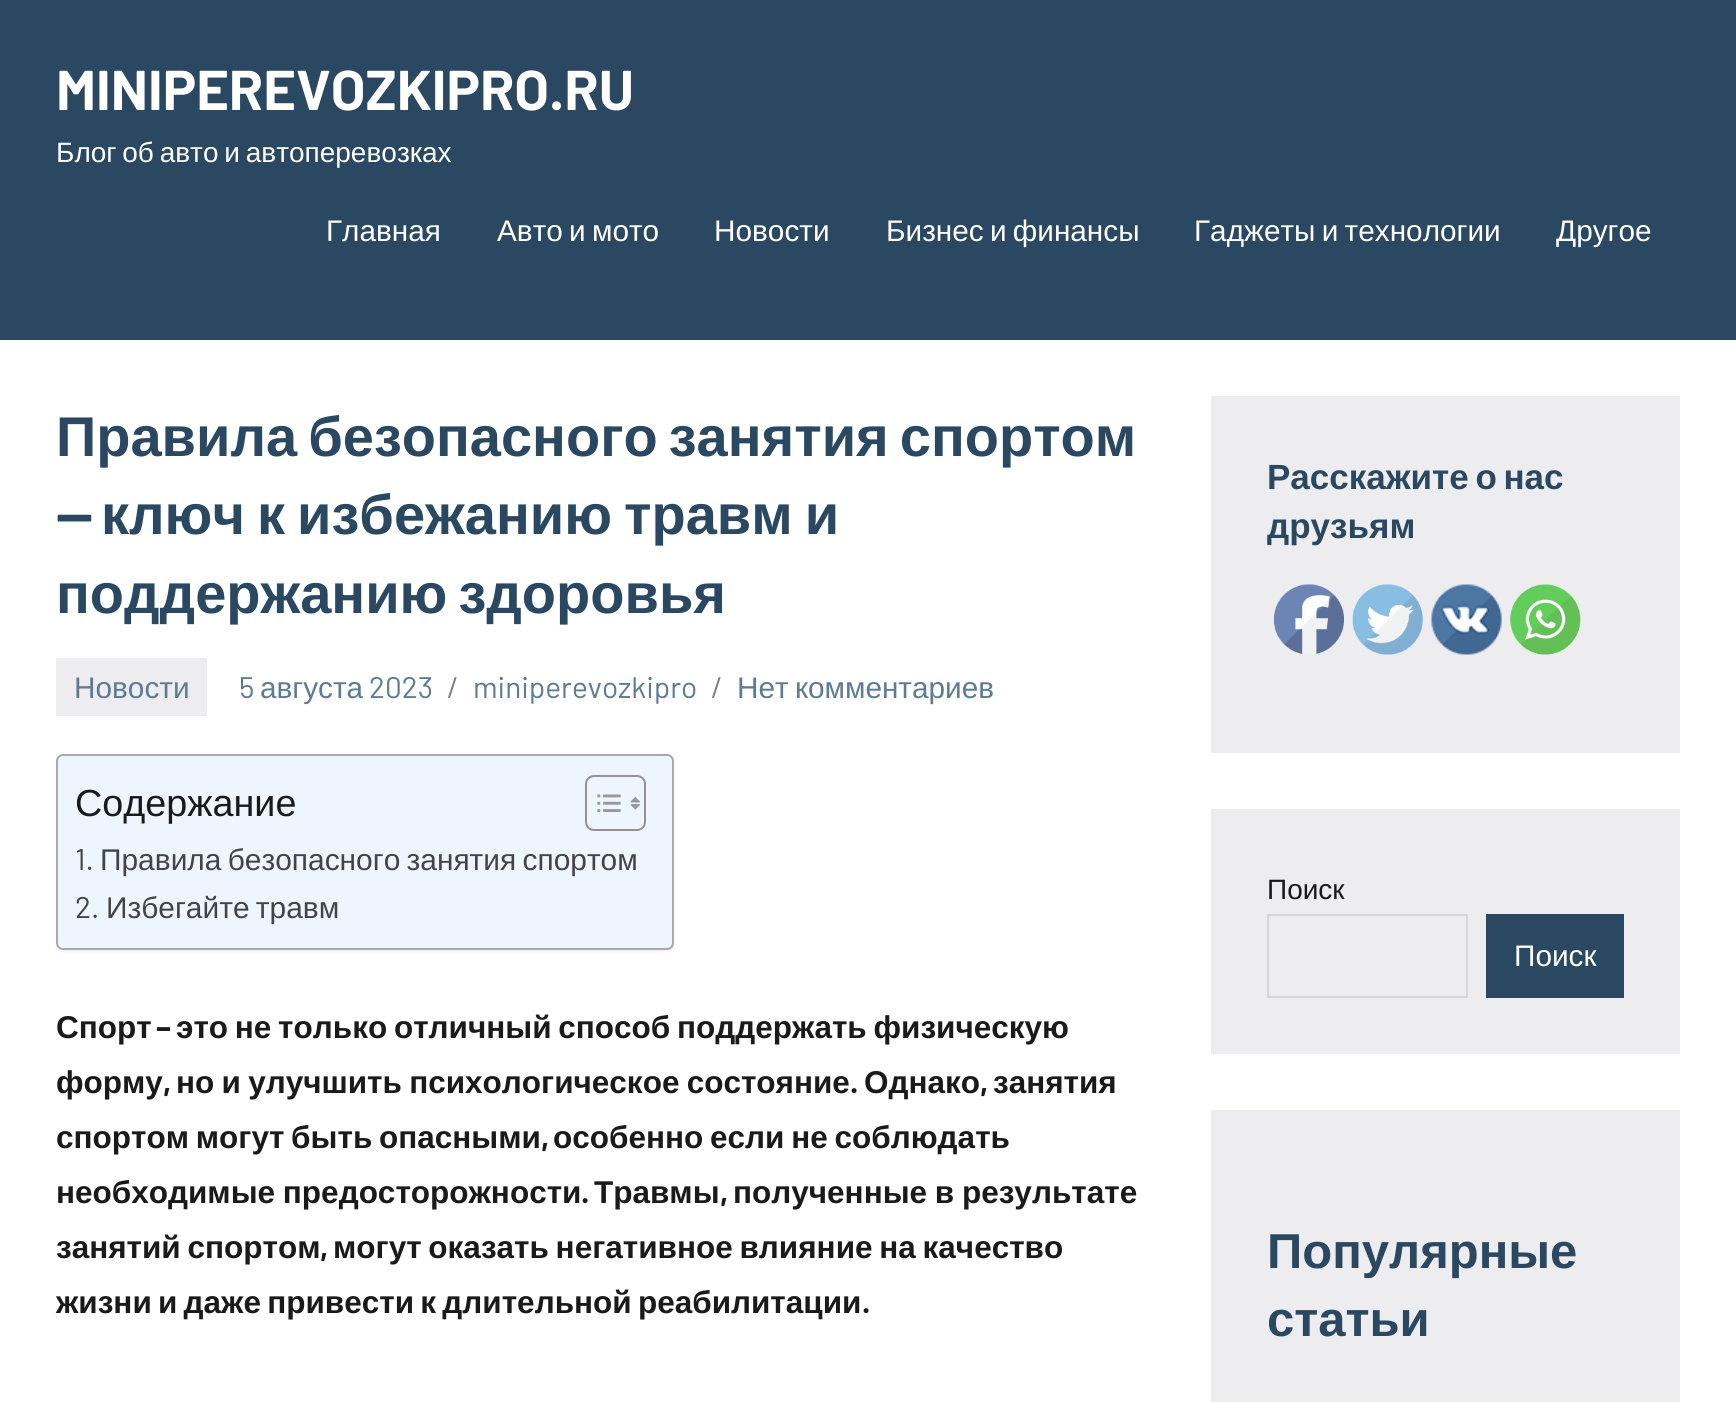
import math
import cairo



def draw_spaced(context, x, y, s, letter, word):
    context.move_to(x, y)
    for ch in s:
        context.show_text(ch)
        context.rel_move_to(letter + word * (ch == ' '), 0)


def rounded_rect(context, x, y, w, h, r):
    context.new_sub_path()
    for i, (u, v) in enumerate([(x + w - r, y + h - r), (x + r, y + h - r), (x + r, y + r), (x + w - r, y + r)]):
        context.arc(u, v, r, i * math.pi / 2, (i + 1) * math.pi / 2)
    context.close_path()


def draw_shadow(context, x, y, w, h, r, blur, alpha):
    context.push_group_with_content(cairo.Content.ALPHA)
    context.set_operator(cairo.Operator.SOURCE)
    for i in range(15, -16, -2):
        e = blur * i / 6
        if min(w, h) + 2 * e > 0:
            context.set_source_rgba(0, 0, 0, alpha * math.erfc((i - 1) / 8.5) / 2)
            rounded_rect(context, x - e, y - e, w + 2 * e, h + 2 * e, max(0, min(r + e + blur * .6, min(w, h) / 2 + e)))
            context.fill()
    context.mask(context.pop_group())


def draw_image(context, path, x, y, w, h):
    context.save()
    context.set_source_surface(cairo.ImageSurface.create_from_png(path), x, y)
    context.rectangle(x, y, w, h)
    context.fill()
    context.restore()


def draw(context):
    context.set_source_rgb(42 / 255, 72 / 255, 97 / 255)
    context.paint()
    context.set_source_rgb(1, 1, 1)
    context.rectangle(0, 340, 1736, 1062)
    context.fill()
    context.set_source_rgb(237 / 255, 237 / 255, 239 / 255)
    context.rectangle(56, 658, 151, 58)
    context.fill()
    context.set_source_rgb(0, 0, 0)
    draw_shadow(context, 56, 756, 618, 196, 7, 1, 0.05)
    context.set_source_rgb(237 / 255, 246 / 255, 1)
    rounded_rect(context, 57, 755, 616, 194, 6)
    context.fill_preserve()
    context.set_source_rgb(170 / 255, 170 / 255, 170 / 255)
    context.stroke()
    rounded_rect(context, 586, 776, 59, 54, 8)
    context.set_source_rgb(153 / 255, 145 / 255, 145 / 255)
    context.stroke()
    draw_image(context, "images/1.png", 597, 794, 24, 18)
    draw_image(context, "images/2.png", 630, 796, 10, 14)
    context.set_source_rgb(237 / 255, 237 / 255, 239 / 255)
    context.rectangle(1211, 396, 469, 357)
    context.fill()
    draw_image(context, "images/3.png", 1274, 584, 70, 70)
    draw_image(context, "images/4.png", 1352, 584, 71, 71)
    draw_image(context, "images/5.png", 1431, 584, 71, 71)
    draw_image(context, "images/6.png", 1510, 584, 71, 71)
    context.rectangle(1211, 809, 469, 245)
    context.fill()
    context.rectangle(1268, 915, 199, 82)
    context.set_source_rgb(213 / 255, 213 / 255, 215 / 255)
    context.stroke()
    context.set_source_rgb(42 / 255, 72 / 255, 97 / 255)
    context.rectangle(1486, 914, 138, 84)
    context.fill()
    context.set_source_rgb(237 / 255, 237 / 255, 239 / 255)
    context.rectangle(1211, 1110, 469, 292)
    context.fill()
    context.select_font_face("Barlow", cairo.FontSlant.NORMAL, cairo.FontWeight.BOLD)
    context.set_font_size(56)
    context.set_source_rgb(1, 1, 1)
    context.move_to(56, 110)
    context.show_text("MINIPEREVOZKIPRO.RU")
    context.select_font_face("Liberation Sans")
    context.set_font_size(28)
    draw_spaced(context, 56, 162, "Блог об авто и автоперевозках", 0, -2)
    context.set_font_size(29.75)
    context.move_to(326, 241)
    context.show_text("Главная")
    draw_spaced(context, 497, 241, "Авто и мото", 0, -2)
    context.move_to(714, 241)
    context.show_text("Новости")
    draw_spaced(context, 886, 241, "Бизнес и финансы", 0, -2)
    draw_spaced(context, 1194, 241, "Гаджеты и технологии", 0, -2)
    context.move_to(1556, 241)
    context.show_text("Другое")
    context.select_font_face("Liberation Sans", cairo.FontSlant.NORMAL, cairo.FontWeight.BOLD)
    context.set_font_size(56)
    context.set_source_rgb(42 / 255, 72 / 255, 97 / 255)
    draw_spaced(context, 56, 456, "Правила безопасного занятия спортом", 0, -4.5)
    context.select_font_face("Barlow", cairo.FontSlant.NORMAL, cairo.FontWeight.BOLD)
    context.move_to(56, 534)
    context.show_text("—")
    context.select_font_face("Liberation Sans", cairo.FontSlant.NORMAL, cairo.FontWeight.BOLD)
    draw_spaced(context, 101, 534, "ключ к избежанию травм и", 0, -3.5)
    draw_spaced(context, 56, 613, "поддержанию здоровья", 0, -4.5)
    context.select_font_face("Liberation Sans")
    context.set_font_size(29.75)
    context.set_source_rgb(93 / 255, 123 / 255, 148 / 255)
    context.move_to(74, 698)
    context.show_text("Новости")
    context.select_font_face("Barlow")
    context.move_to(239, 698)
    context.show_text("5")
    context.select_font_face("Liberation Sans")
    context.move_to(260, 698)
    context.show_text("августа")
    context.select_font_face("Barlow")
    context.move_to(369, 698)
    context.show_text("2023")
    context.set_source_rgb(128 / 255, 128 / 255, 128 / 255)
    context.move_to(447, 698)
    context.show_text("/")
    context.set_source_rgb(93 / 255, 123 / 255, 148 / 255)
    context.move_to(473, 698)
    context.show_text("miniperevozkipro")
    context.set_source_rgb(128 / 255, 128 / 255, 128 / 255)
    context.move_to(711, 698)
    context.show_text("/")
    context.select_font_face("Liberation Sans")
    context.set_source_rgb(93 / 255, 123 / 255, 148 / 255)
    draw_spaced(context, 737, 698, "Нет комментариев", 0, -2)
    context.set_font_size(37.75)
    context.set_source_rgb(26 / 255, 26 / 255, 26 / 255)
    context.move_to(75, 816)
    context.show_text("Содержание")
    context.select_font_face("Barlow")
    context.set_font_size(29.9)
    context.set_source_rgb(68 / 255, 68 / 255, 68 / 255)
    context.move_to(75, 870)
    context.show_text("1.")
    context.select_font_face("Liberation Sans")
    draw_spaced(context, 100, 870, "Правила безопасного занятия спортом", 0, -2)
    context.select_font_face("Barlow")
    context.move_to(75, 918)
    context.show_text("2.")
    context.select_font_face("Liberation Sans")
    draw_spaced(context, 106, 918, "Избегайте травм", 0, -2)
    context.select_font_face("Liberation Sans", cairo.FontSlant.NORMAL, cairo.FontWeight.BOLD)
    context.set_font_size(31.5)
    context.set_source_rgb(26 / 255, 26 / 255, 26 / 255)
    context.move_to(56, 1038)
    context.show_text("Спорт")
    context.select_font_face("Barlow", cairo.FontSlant.NORMAL, cairo.FontWeight.BOLD)
    context.move_to(156, 1038)
    context.show_text("–")
    context.select_font_face("Liberation Sans", cairo.FontSlant.NORMAL, cairo.FontWeight.BOLD)
    draw_spaced(context, 176, 1038, "это не только отличный способ поддержать физическую", 0, -2)
    context.move_to(56, 1093)
    context.show_text("форму")
    context.select_font_face("Barlow", cairo.FontSlant.NORMAL, cairo.FontWeight.BOLD)
    context.move_to(163, 1093)
    context.show_text(",")
    context.select_font_face("Liberation Sans", cairo.FontSlant.NORMAL, cairo.FontWeight.BOLD)
    draw_spaced(context, 176, 1093, "но и улучшить психологическое состояние", 0, -1.5)
    context.select_font_face("Barlow", cairo.FontSlant.NORMAL, cairo.FontWeight.BOLD)
    context.move_to(850, 1093)
    context.show_text(".")
    context.select_font_face("Liberation Sans", cairo.FontSlant.NORMAL, cairo.FontWeight.BOLD)
    context.move_to(864, 1093)
    context.show_text("Однако")
    context.select_font_face("Barlow", cairo.FontSlant.NORMAL, cairo.FontWeight.BOLD)
    context.move_to(980, 1093)
    context.show_text(",")
    context.select_font_face("Liberation Sans", cairo.FontSlant.NORMAL, cairo.FontWeight.BOLD)
    context.move_to(993, 1093)
    context.show_text("занятия")
    draw_spaced(context, 56, 1148, "спортом могут быть опасными", 0, -2)
    context.select_font_face("Barlow", cairo.FontSlant.NORMAL, cairo.FontWeight.BOLD)
    context.move_to(541, 1148)
    context.show_text(",")
    context.select_font_face("Liberation Sans", cairo.FontSlant.NORMAL, cairo.FontWeight.BOLD)
    draw_spaced(context, 553, 1148, "особенно если не соблюдать", 0, -2)
    draw_spaced(context, 56, 1203, "необходимые предосторожности", 0, -1)
    context.select_font_face("Barlow", cairo.FontSlant.NORMAL, cairo.FontWeight.BOLD)
    context.move_to(581, 1203)
    context.show_text(".")
    context.select_font_face("Liberation Sans", cairo.FontSlant.NORMAL, cairo.FontWeight.BOLD)
    context.move_to(594, 1203)
    context.show_text("Травмы")
    context.select_font_face("Barlow", cairo.FontSlant.NORMAL, cairo.FontWeight.BOLD)
    context.move_to(720, 1203)
    context.show_text(",")
    context.select_font_face("Liberation Sans", cairo.FontSlant.NORMAL, cairo.FontWeight.BOLD)
    draw_spaced(context, 733, 1203, "полученные в результате", 0, -1)
    draw_spaced(context, 56, 1258, "занятий спортом", 0, -2)
    context.select_font_face("Barlow", cairo.FontSlant.NORMAL, cairo.FontWeight.BOLD)
    context.move_to(320, 1258)
    context.show_text(",")
    context.select_font_face("Liberation Sans", cairo.FontSlant.NORMAL, cairo.FontWeight.BOLD)
    draw_spaced(context, 333, 1258, "могут оказать негативное влияние на качество", 0, -2)
    draw_spaced(context, 56, 1313, "жизни и даже привести к длительной реабилитации", 0, -2.5)
    context.select_font_face("Barlow", cairo.FontSlant.NORMAL, cairo.FontWeight.BOLD)
    context.move_to(862, 1313)
    context.show_text(".")
    context.select_font_face("Liberation Sans", cairo.FontSlant.NORMAL, cairo.FontWeight.BOLD)
    context.set_font_size(35)
    context.set_source_rgb(42 / 255, 72 / 255, 97 / 255)
    draw_spaced(context, 1267, 489, "Расскажите о нас", 0, -3)
    context.move_to(1267, 538)
    context.show_text("друзьям")
    context.select_font_face("Liberation Sans")
    context.set_font_size(28)
    context.set_source_rgb(26 / 255, 26 / 255, 26 / 255)
    context.move_to(1267, 899)
    context.show_text("Поиск")
    context.set_font_size(29.75)
    context.set_source_rgb(1, 1, 1)
    context.move_to(1514, 966)
    context.show_text("Поиск")
    context.select_font_face("Liberation Sans", cairo.FontSlant.NORMAL, cairo.FontWeight.BOLD)
    context.set_font_size(49)
    context.set_source_rgb(42 / 255, 72 / 255, 97 / 255)
    context.move_to(1267, 1268)
    context.show_text("Популярные")
    context.move_to(1267, 1336)
    context.show_text("статьи")


surface = cairo.ImageSurface(cairo.Format.RGB24, 1736, 1402)
context = cairo.Context(surface)
options = cairo.FontOptions()
options.set_hint_metrics(cairo.HintMetrics.OFF)
options.set_hint_style(cairo.HintStyle.NONE)
context.set_font_options(options)
context.set_miter_limit(4)
draw(context)
surface.write_to_png("out.png")
